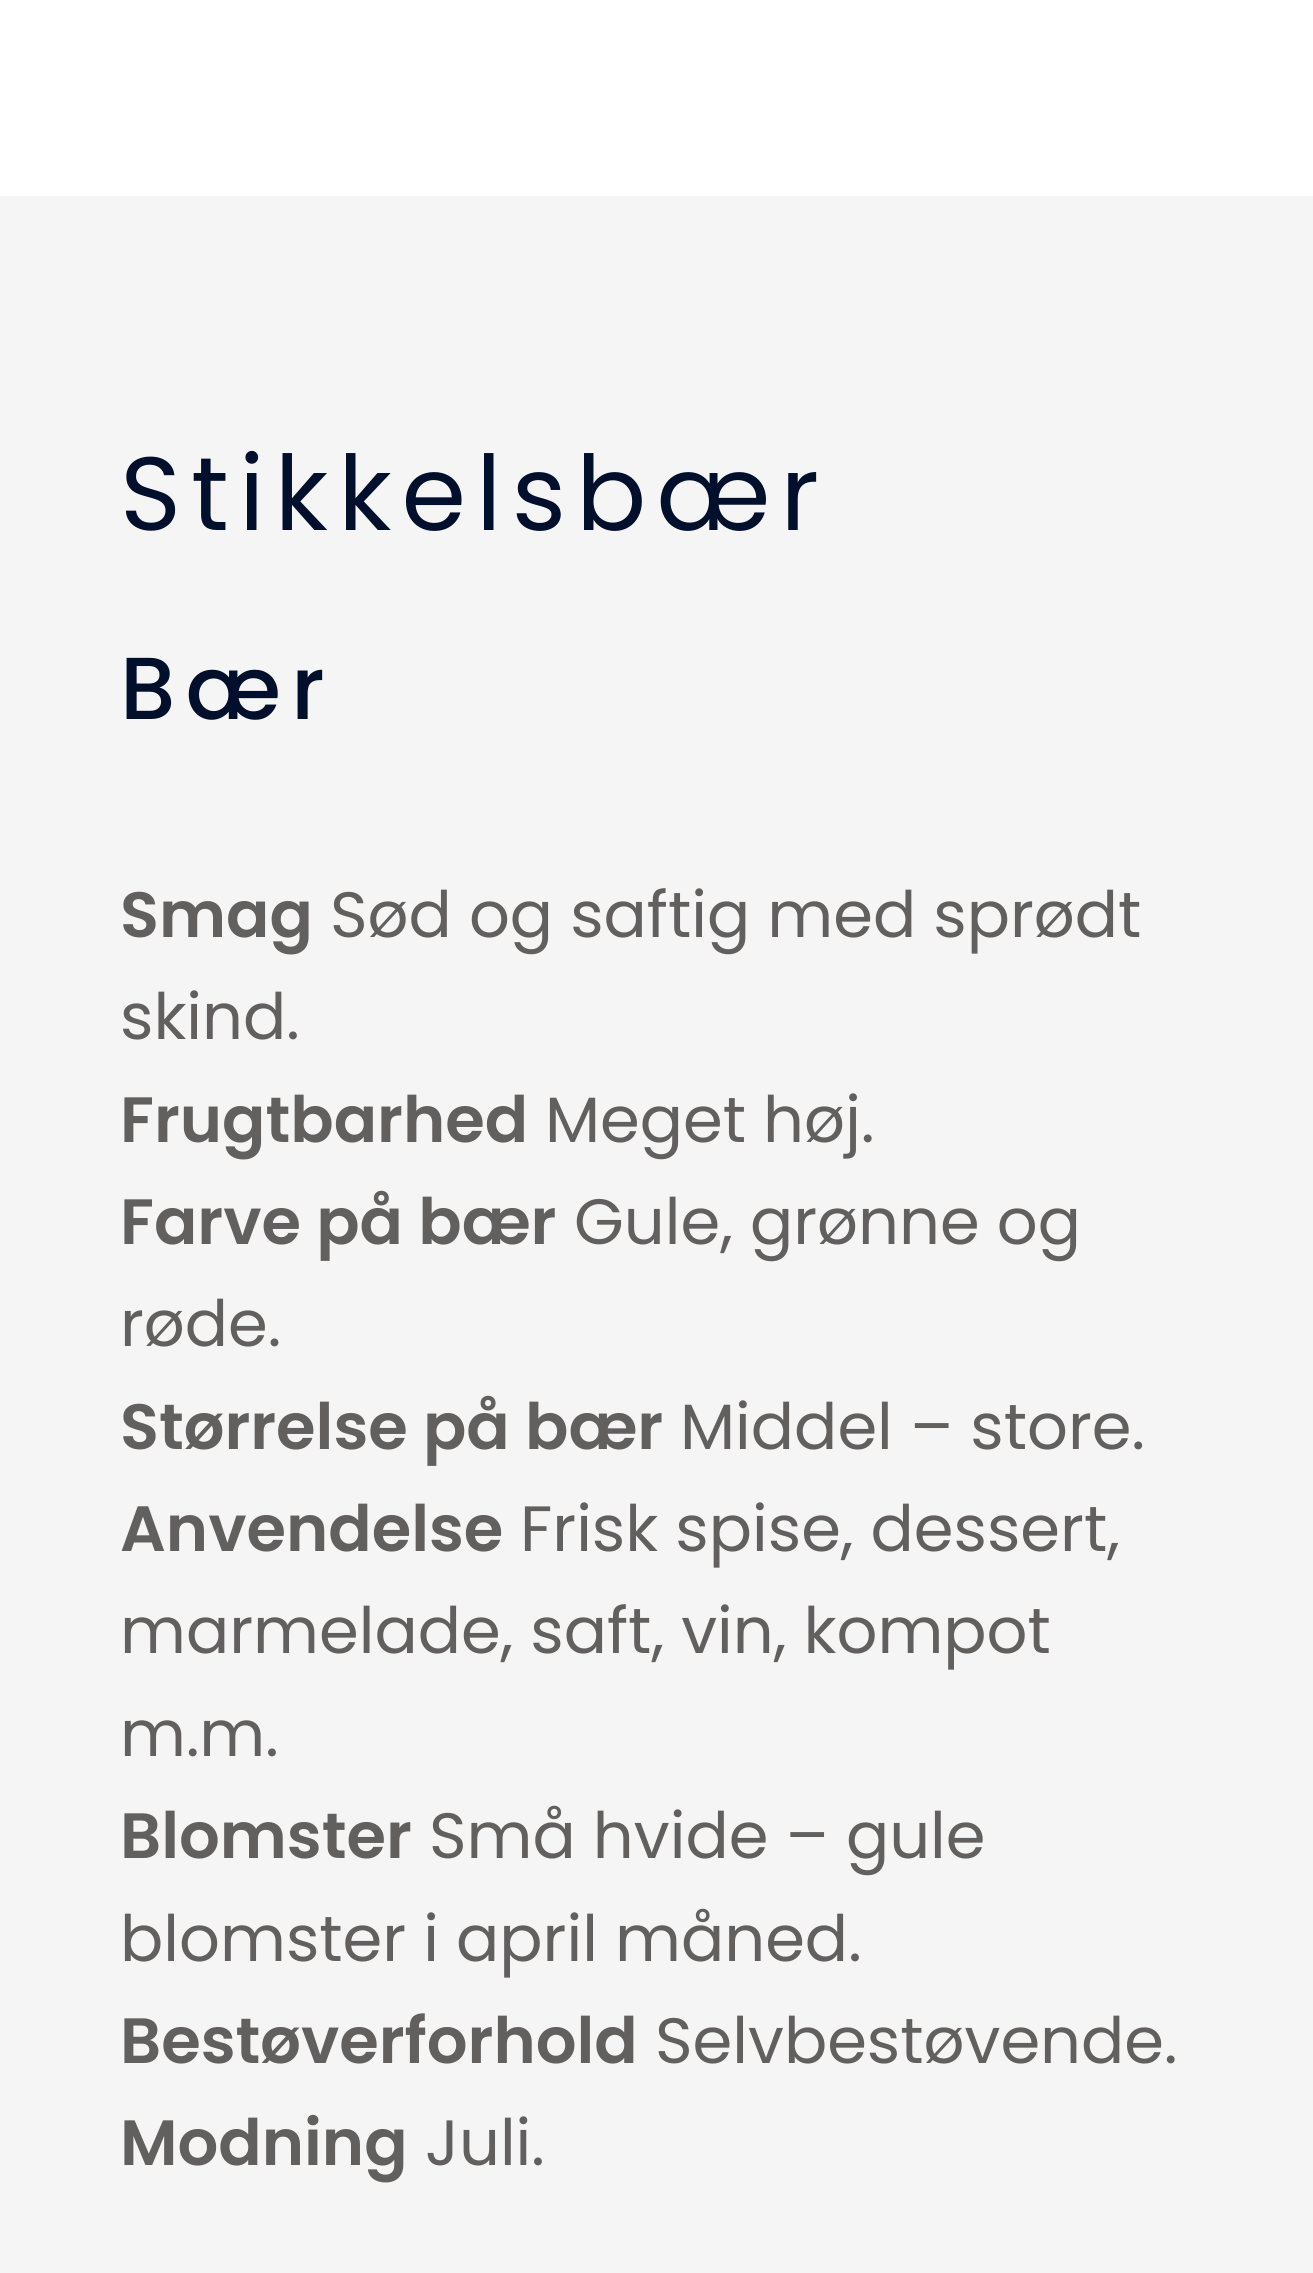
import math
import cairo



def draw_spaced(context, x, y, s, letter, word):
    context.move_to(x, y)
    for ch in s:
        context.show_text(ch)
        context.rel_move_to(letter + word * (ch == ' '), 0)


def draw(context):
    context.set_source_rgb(1, 1, 1)
    context.paint()
    context.set_source_rgb(245 / 255, 245 / 255, 245 / 255)
    context.rectangle(0, 196, 1313, 2077)
    context.fill()
    context.select_font_face("Poppins")
    context.set_font_size(104)
    context.set_source_rgb(0, 15 / 255, 43 / 255)
    draw_spaced(context, 120, 530, "Stikkelsbær", 10, 0)
    context.select_font_face("Poppins Medium")
    context.set_font_size(88)
    draw_spaced(context, 120, 719, "Bær", 10, 0)
    context.select_font_face("Poppins SemiBold")
    context.set_font_size(64)
    context.set_source_rgb(98 / 255, 95 / 255, 95 / 255)
    context.move_to(120, 937)
    context.show_text("Smag")
    context.select_font_face("Poppins")
    context.move_to(330, 937)
    context.show_text("Sød og saftig med sprødt")
    context.move_to(120, 1039)
    context.show_text("skind.")
    context.select_font_face("Poppins SemiBold")
    context.move_to(120, 1142)
    context.show_text("Frugtbarhed")
    context.select_font_face("Poppins")
    context.move_to(545, 1142)
    context.show_text("Meget høj.")
    context.select_font_face("Poppins SemiBold")
    context.move_to(120, 1244)
    context.show_text("Farve på bær")
    context.select_font_face("Poppins")
    context.move_to(574, 1244)
    context.show_text("Gule, grønne og")
    context.move_to(120, 1346)
    context.show_text("røde.")
    context.select_font_face("Poppins SemiBold")
    context.move_to(120, 1449)
    context.show_text("Størrelse på bær")
    context.select_font_face("Poppins")
    context.move_to(680, 1449)
    context.show_text("Middel – store.")
    context.select_font_face("Poppins SemiBold")
    context.move_to(120, 1551)
    context.show_text("Anvendelse")
    context.select_font_face("Poppins")
    context.move_to(520, 1551)
    context.show_text("Frisk spise, dessert,")
    context.move_to(120, 1653)
    context.show_text("marmelade, saft, vin, kompot")
    context.move_to(120, 1756)
    context.show_text("m.m.")
    context.select_font_face("Poppins SemiBold")
    context.move_to(120, 1858)
    context.show_text("Blomster")
    context.select_font_face("Poppins")
    context.move_to(429, 1858)
    context.show_text("Små hvide – gule")
    context.move_to(120, 1961)
    context.show_text("blomster i april måned.")
    context.select_font_face("Poppins SemiBold")
    context.move_to(120, 2063)
    context.show_text("Bestøverforhold")
    context.select_font_face("Poppins")
    context.move_to(655, 2063)
    context.show_text("Selvbestøvende.")
    context.select_font_face("Poppins SemiBold")
    context.move_to(120, 2165)
    context.show_text("Modning")
    context.select_font_face("Poppins")
    context.move_to(425, 2165)
    context.show_text("Juli.")


surface = cairo.ImageSurface(cairo.Format.RGB24, 1313, 2273)
context = cairo.Context(surface)
options = cairo.FontOptions()
options.set_hint_metrics(cairo.HintMetrics.OFF)
options.set_hint_style(cairo.HintStyle.NONE)
context.set_font_options(options)
context.set_miter_limit(4)
draw(context)
surface.write_to_png("out.png")
